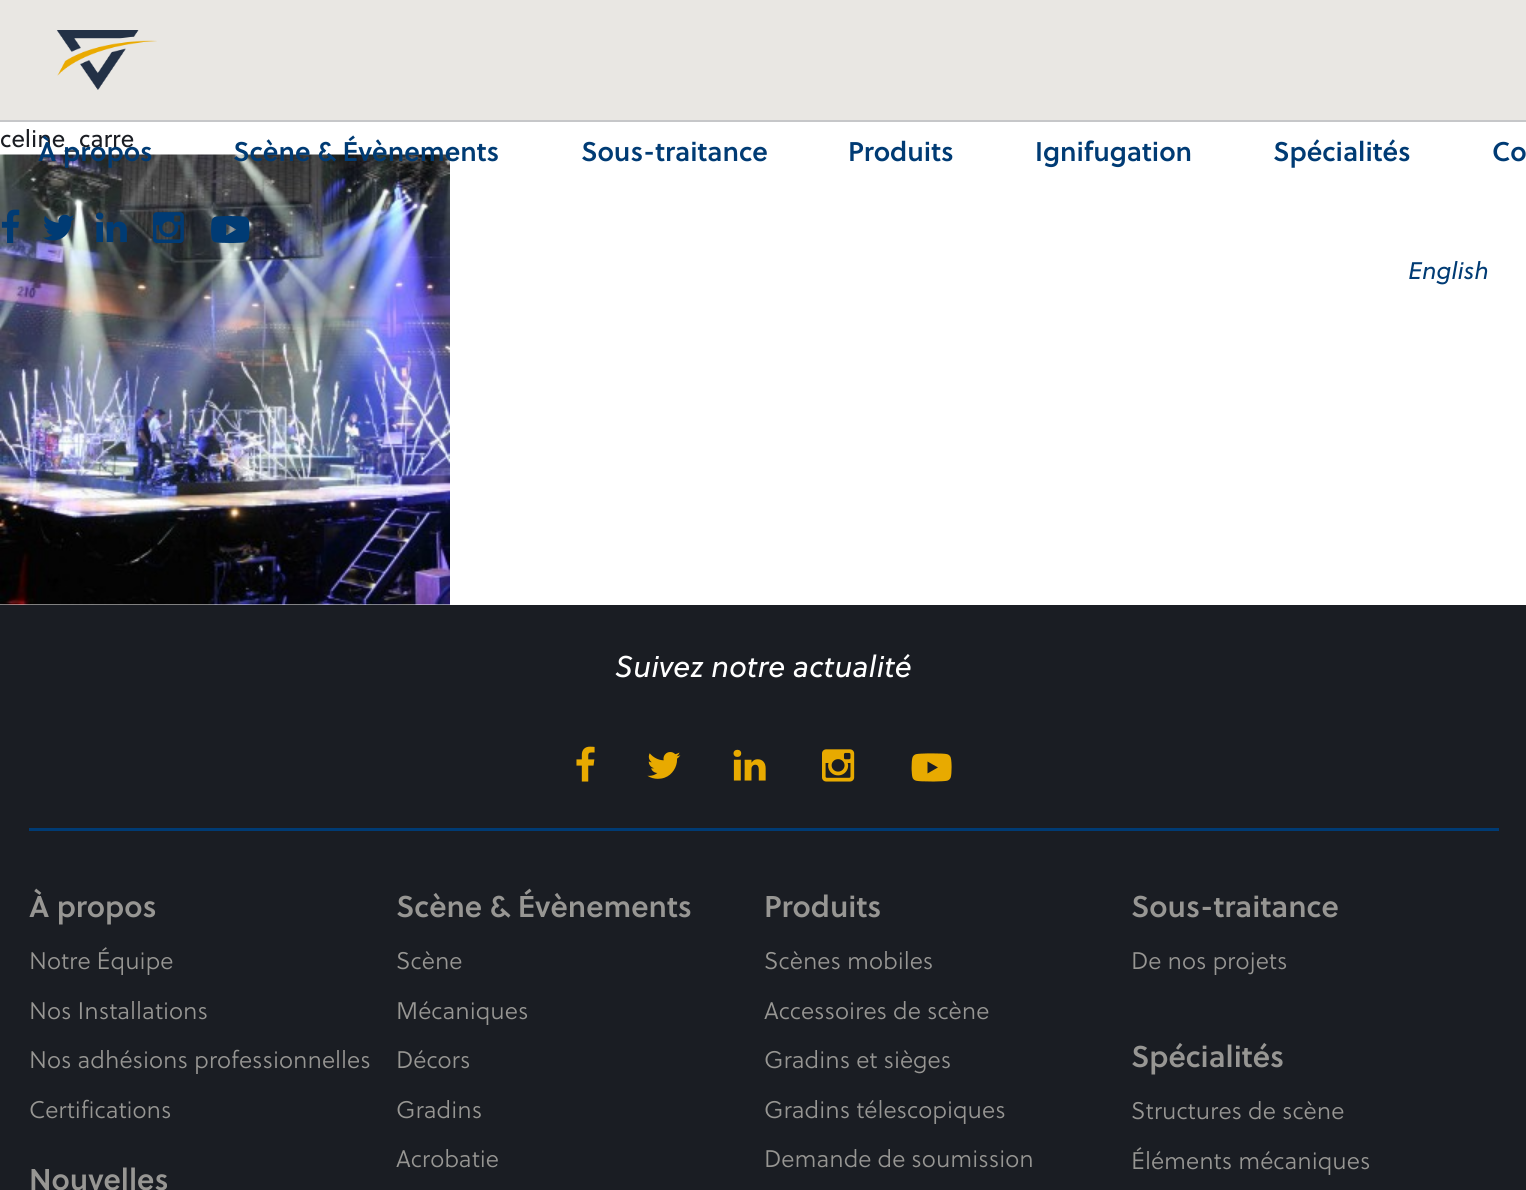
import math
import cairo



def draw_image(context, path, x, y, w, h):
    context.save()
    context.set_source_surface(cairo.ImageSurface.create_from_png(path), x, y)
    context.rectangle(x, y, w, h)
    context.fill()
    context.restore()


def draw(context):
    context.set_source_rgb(1, 1, 1)
    context.paint()
    context.set_source_rgb(233 / 255, 231 / 255, 227 / 255)
    context.rectangle(0, 0, 1526, 120)
    context.fill()
    context.set_source_rgb(198 / 255, 199 / 255, 201 / 255)
    context.rectangle(0, 120, 1526, 2)
    context.fill()
    draw_image(context, "images/1.png", 56, 30, 101, 60)
    draw_image(context, "images/7.png", 0, 154, 450, 451)
    draw_image(context, "images/2.png", 1, 209, 19, 34)
    draw_image(context, "images/3.png", 43, 214, 32, 27)
    draw_image(context, "images/4.png", 96, 212, 31, 31)
    draw_image(context, "images/5.png", 153, 212, 31, 31)
    draw_image(context, "images/6.png", 211, 216, 39, 27)
    context.set_source_rgb(26 / 255, 29 / 255, 35 / 255)
    context.rectangle(0, 605, 1526, 585)
    context.fill()
    draw_image(context, "images/8.png", 576, 746, 19, 36)
    draw_image(context, "images/9.png", 647, 752, 34, 27)
    draw_image(context, "images/10.png", 733, 749, 33, 32)
    draw_image(context, "images/11.png", 822, 749, 33, 33)
    draw_image(context, "images/12.png", 911, 753, 41, 29)
    context.set_source_rgb(0, 59 / 255, 116 / 255)
    context.rectangle(29, 828, 1470, 3)
    context.fill()
    context.select_font_face("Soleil")
    context.set_font_size(24)
    context.set_source_rgb(26 / 255, 29 / 255, 35 / 255)
    context.move_to(0, 147)
    context.show_text("celine")
    context.move_to(79, 147)
    context.show_text("carre")
    context.select_font_face("Soleil SemiBold")
    context.set_font_size(27)
    context.set_source_rgb(0, 59 / 255, 116 / 255)
    context.move_to(233, 161)
    context.show_text("Scène & Évènements")
    context.move_to(581, 161)
    context.show_text("Sous-traitance")
    context.move_to(848, 161)
    context.show_text("Produits")
    context.move_to(1035, 161)
    context.show_text("Ignifugation")
    context.move_to(1273, 161)
    context.show_text("Spécialités")
    context.move_to(1492, 161)
    context.show_text("Co")
    context.select_font_face("Soleil", cairo.FontSlant.ITALIC)
    context.set_font_size(24)
    context.move_to(1408, 279)
    context.show_text("English")
    context.select_font_face("Liberation Sans")
    context.set_source_rgb(26 / 255, 29 / 255, 35 / 255)
    context.move_to(65, 147)
    context.show_text("_")
    context.select_font_face("Soleil SemiBold")
    context.set_font_size(27)
    context.set_source_rgb(0, 59 / 255, 116 / 255)
    context.move_to(38, 161)
    context.show_text("À propos")
    context.select_font_face("Soleil", cairo.FontSlant.ITALIC)
    context.set_font_size(30)
    context.set_source_rgb(1, 1, 1)
    context.move_to(615, 677)
    context.show_text("Suivez notre actualité")
    context.select_font_face("Soleil SemiBold")
    context.set_source_rgb(151 / 255, 150 / 255, 147 / 255)
    context.move_to(29, 917)
    context.show_text("À propos")
    context.select_font_face("Soleil Light")
    context.set_font_size(24)
    context.move_to(29, 969)
    context.show_text("Notre Équipe")
    context.move_to(29, 1019)
    context.show_text("Nos Installations")
    context.move_to(29, 1068)
    context.show_text("Nos adhésions professionnelles")
    context.move_to(29, 1118)
    context.show_text("Certifications")
    context.select_font_face("Soleil SemiBold")
    context.set_font_size(30)
    context.move_to(29, 1190)
    context.show_text("Nouvelles")
    context.move_to(396, 917)
    context.show_text("Scène & Évènements")
    context.select_font_face("Soleil Light")
    context.set_font_size(24)
    context.move_to(396, 969)
    context.show_text("Scène")
    context.move_to(396, 1019)
    context.show_text("Mécaniques")
    context.move_to(396, 1068)
    context.show_text("Décors")
    context.move_to(396, 1118)
    context.show_text("Gradins")
    context.move_to(396, 1167)
    context.show_text("Acrobatie")
    context.select_font_face("Soleil SemiBold")
    context.set_font_size(30)
    context.move_to(764, 917)
    context.show_text("Produits")
    context.select_font_face("Soleil Light")
    context.set_font_size(24)
    context.move_to(764, 969)
    context.show_text("Scènes mobiles")
    context.move_to(764, 1019)
    context.show_text("Accessoires de scène")
    context.move_to(764, 1068)
    context.show_text("Gradins et sièges")
    context.move_to(764, 1118)
    context.show_text("Gradins télescopiques")
    context.move_to(764, 1167)
    context.show_text("Demande de soumission")
    context.select_font_face("Soleil SemiBold")
    context.set_font_size(30)
    context.move_to(1131, 917)
    context.show_text("Sous-traitance")
    context.select_font_face("Soleil Light")
    context.set_font_size(24)
    context.move_to(1131, 969)
    context.show_text("De nos projets")
    context.select_font_face("Soleil SemiBold")
    context.set_font_size(30)
    context.move_to(1131, 1067)
    context.show_text("Spécialités")
    context.select_font_face("Soleil Light")
    context.set_font_size(24)
    context.move_to(1131, 1119)
    context.show_text("Structures de scène")
    context.move_to(1131, 1169)
    context.show_text("Éléments mécaniques")


surface = cairo.ImageSurface(cairo.Format.RGB24, 1526, 1190)
context = cairo.Context(surface)
options = cairo.FontOptions()
options.set_hint_metrics(cairo.HintMetrics.OFF)
options.set_hint_style(cairo.HintStyle.NONE)
context.set_font_options(options)
context.set_miter_limit(4)
draw(context)
surface.write_to_png("out.png")
